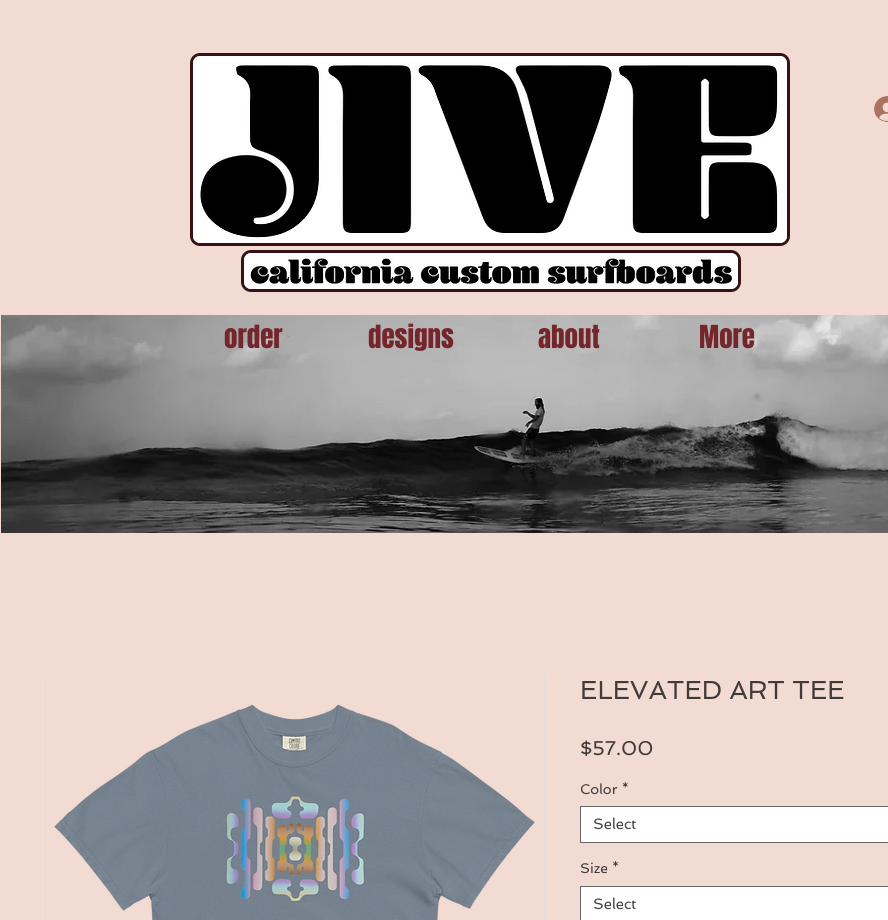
import math
import cairo



def rounded_rect(context, x, y, w, h, r):
    context.new_sub_path()
    for i, (u, v) in enumerate([(x + w - r, y + h - r), (x + r, y + h - r), (x + r, y + r), (x + w - r, y + r)]):
        context.arc(u, v, r, i * math.pi / 2, (i + 1) * math.pi / 2)
    context.close_path()


def draw_image(context, path, x, y, w, h):
    context.save()
    context.set_source_surface(cairo.ImageSurface.create_from_png(path), x, y)
    context.rectangle(x, y, w, h)
    context.fill()
    context.restore()


def draw(context):
    context.set_source_rgb(241 / 255, 219 / 255, 211 / 255)
    context.paint()
    rounded_rect(context, 191.5, 54.5, 597, 190, 8.5)
    context.set_source_rgb(54 / 255, 18 / 255, 21 / 255)
    context.set_line_width(3)
    context.stroke()
    draw_image(context, "images/1.png", 193, 56, 594, 187)
    draw_image(context, "images/2.png", 874, 96, 14, 26)
    rounded_rect(context, 242.5, 251.5, 497, 39, 8.5)
    context.stroke()
    draw_image(context, "images/3.png", 244, 253, 494, 36)
    draw_image(context, "images/4.png", 1, 315, 887, 218)
    context.rectangle(45.5, 675.5, 499, 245)
    context.set_source_rgb(228 / 255, 220 / 255, 217 / 255)
    context.set_line_width(1)
    context.stroke()
    draw_image(context, "images/5.png", 54, 704, 481, 216)
    context.set_source_rgb(1, 1, 1)
    context.rectangle(580.5, 806.5, 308, 36)
    context.fill_preserve()
    context.set_source_rgb(102 / 255, 102 / 255, 102 / 255)
    context.stroke()
    context.set_source_rgb(1, 1, 1)
    context.rectangle(580.5, 886.5, 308, 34)
    context.fill_preserve()
    context.set_source_rgb(102 / 255, 102 / 255, 102 / 255)
    context.stroke()
    context.select_font_face("Anton")
    context.set_font_size(27)
    context.set_source_rgb(116 / 255, 38 / 255, 44 / 255)
    context.move_to(224, 348)
    context.show_text("order")
    context.move_to(368, 348)
    context.show_text("designs")
    context.move_to(538, 348)
    context.show_text("about")
    context.move_to(699, 348)
    context.show_text("More")
    context.select_font_face("Spinnaker")
    context.set_font_size(26)
    context.set_source_rgb(65 / 255, 58 / 255, 56 / 255)
    context.move_to(580, 699)
    context.show_text("ELEVATED ART TEE")
    context.set_font_size(20)
    context.move_to(580, 755)
    context.show_text("$57.00")
    context.set_font_size(14)
    context.move_to(580, 794)
    context.show_text("Color *")
    context.set_font_size(15)
    context.set_source_rgb(68 / 255, 68 / 255, 68 / 255)
    context.move_to(593, 829)
    context.show_text("Select")
    context.set_font_size(14)
    context.set_source_rgb(65 / 255, 58 / 255, 56 / 255)
    context.move_to(580, 873)
    context.show_text("Size *")
    context.set_font_size(15)
    context.set_source_rgb(68 / 255, 68 / 255, 68 / 255)
    context.move_to(593, 909)
    context.show_text("Select")


surface = cairo.ImageSurface(cairo.Format.RGB24, 888, 920)
context = cairo.Context(surface)
options = cairo.FontOptions()
options.set_hint_metrics(cairo.HintMetrics.OFF)
options.set_hint_style(cairo.HintStyle.NONE)
context.set_font_options(options)
context.set_miter_limit(4)
draw(context)
surface.write_to_png("out.png")
